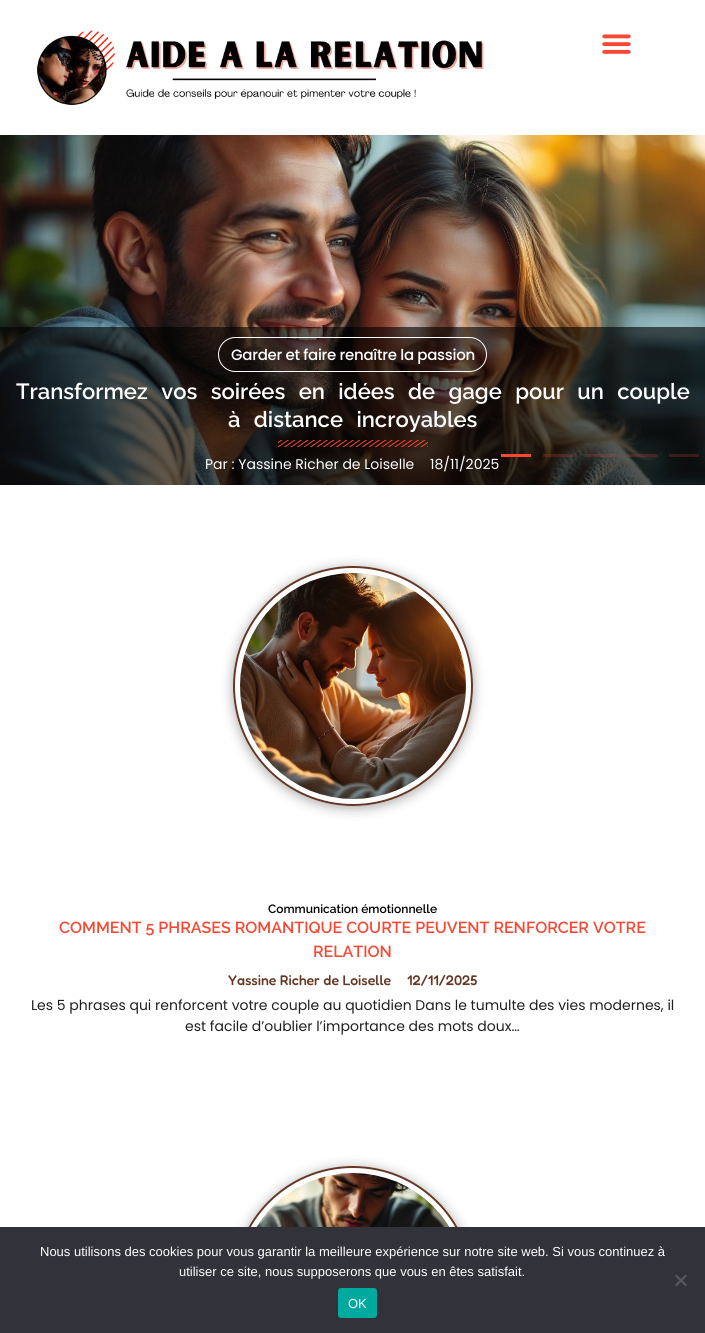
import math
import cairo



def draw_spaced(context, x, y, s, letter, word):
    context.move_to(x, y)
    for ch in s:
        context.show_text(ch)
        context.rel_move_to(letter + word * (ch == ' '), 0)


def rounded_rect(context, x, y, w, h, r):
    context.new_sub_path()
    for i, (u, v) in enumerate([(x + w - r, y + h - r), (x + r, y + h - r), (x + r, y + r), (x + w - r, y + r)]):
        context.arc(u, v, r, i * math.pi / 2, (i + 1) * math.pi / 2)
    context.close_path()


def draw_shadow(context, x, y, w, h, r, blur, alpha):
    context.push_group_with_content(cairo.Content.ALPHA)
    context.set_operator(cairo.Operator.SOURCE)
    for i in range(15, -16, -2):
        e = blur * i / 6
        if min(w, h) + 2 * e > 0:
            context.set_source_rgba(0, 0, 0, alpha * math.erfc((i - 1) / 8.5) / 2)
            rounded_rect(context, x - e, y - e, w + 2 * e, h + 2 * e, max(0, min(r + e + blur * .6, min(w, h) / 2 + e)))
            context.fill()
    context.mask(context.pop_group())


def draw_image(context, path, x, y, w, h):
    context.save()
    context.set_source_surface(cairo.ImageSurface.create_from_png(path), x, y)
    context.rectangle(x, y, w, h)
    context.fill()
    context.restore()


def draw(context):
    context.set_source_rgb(1, 1, 1)
    context.paint()
    draw_image(context, "images/1.png", 37, 30, 447, 76)
    draw_image(context, "images/2.png", 602, 34, 29, 20)
    draw_image(context, "images/3.png", 0, 135, 705, 350)
    context.set_source_rgba(0, 0, 0, 0.61)
    context.rectangle(0, 327, 705, 158)
    context.fill()
    rounded_rect(context, 218.5, 337.5, 268, 34, 17)
    context.set_source_rgb(1, 1, 1)
    context.set_line_width(1)
    context.stroke()
    draw_image(context, "images/4.png", 278, 440, 150, 7)
    context.set_source_rgb(247 / 255, 72 / 255, 52 / 255)
    context.rectangle(501, 454, 30, 3)
    context.fill()
    context.set_source_rgba(247 / 255, 72 / 255, 52 / 255, 0.2)
    context.rectangle(543, 454, 30, 3)
    context.fill()
    context.rectangle(585, 454, 30, 3)
    context.fill()
    context.rectangle(627, 454, 30, 3)
    context.fill()
    context.rectangle(669, 454, 30, 3)
    context.fill()
    context.save()
    context.set_fill_rule(cairo.FillRule.EVEN_ODD)
    context.new_path()
    context.move_to(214, 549)
    context.line_to(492, 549)
    context.line_to(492, 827)
    context.line_to(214, 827)
    context.close_path()
    context.move_to(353, 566)
    context.curve_to(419.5, 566, 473, 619.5, 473, 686)
    context.curve_to(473, 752.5, 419.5, 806, 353, 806)
    context.curve_to(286.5, 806, 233, 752.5, 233, 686)
    context.curve_to(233, 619.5, 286.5, 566, 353, 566)
    context.close_path()
    context.clip()
    context.set_source_rgb(0, 0, 0)
    draw_shadow(context, 233, 568, 240, 240, 120, 6, 0.35)
    context.restore()
    context.arc(353, 686, 119, 0, 2 * math.pi)
    context.set_source_rgb(101 / 255, 56 / 255, 37 / 255)
    context.set_line_width(2)
    context.stroke()
    draw_image(context, "images/5.png", 240, 573, 226, 226)
    context.save()
    context.set_fill_rule(cairo.FillRule.EVEN_ODD)
    context.new_path()
    context.move_to(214, 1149)
    context.line_to(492, 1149)
    context.line_to(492, 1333)
    context.line_to(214, 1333)
    context.close_path()
    context.move_to(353, 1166)
    context.curve_to(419.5, 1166, 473, 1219.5, 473, 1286)
    context.curve_to(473, 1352.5, 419.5, 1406, 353, 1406)
    context.curve_to(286.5, 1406, 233, 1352.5, 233, 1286)
    context.curve_to(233, 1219.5, 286.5, 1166, 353, 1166)
    context.close_path()
    context.clip()
    context.set_source_rgb(0, 0, 0)
    draw_shadow(context, 233, 1168, 240, 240, 120, 6, 0.35)
    context.restore()
    context.arc(353, 1286, 119, 0, 2 * math.pi)
    context.stroke()
    draw_image(context, "images/6.png", 256, 1173, 194, 54)
    context.set_source_rgb(50 / 255, 50 / 255, 58 / 255)
    context.rectangle(0, 1227, 705, 106)
    context.fill()
    context.set_source_rgb(89 / 255, 89 / 255, 93 / 255)
    context.new_path()
    context.move_to(685.5, 1274.5)
    context.line_to(687, 1276)
    context.line_to(676.5, 1286.5)
    context.line_to(675, 1285)
    context.close_path()
    context.fill()
    context.new_path()
    context.move_to(675, 1276)
    context.line_to(676.5, 1274.5)
    context.line_to(687, 1285)
    context.line_to(685.5, 1286.5)
    context.close_path()
    context.fill()
    context.set_source_rgb(0, 169 / 255, 157 / 255)
    rounded_rect(context, 338, 1288, 39, 30, 3)
    context.fill()
    context.select_font_face("Poppins Medium")
    context.set_font_size(15)
    context.set_source_rgb(1, 1, 1)
    draw_spaced(context, 231, 360, "Garder et faire renaître la passion", -0.3, 0)
    context.select_font_face("Raleway SemiBold")
    context.set_font_size(22)
    draw_spaced(context, 16, 399, "Transformez vos soirées en idées de gage pour un couple", 0, 8)
    draw_spaced(context, 228, 427, "à distance incroyables", 0, 8)
    context.select_font_face("Poppins")
    context.set_font_size(14)
    context.move_to(205, 469)
    context.show_text("Par : Yassine Richer de Loiselle")
    context.move_to(430, 469)
    context.show_text("18/11/2025")
    context.select_font_face("Raleway SemiBold")
    context.set_font_size(12)
    context.set_source_rgb(0, 0, 0)
    context.move_to(268, 913)
    context.show_text("Communication émotionnelle")
    context.set_font_size(16)
    context.set_source_rgb(247 / 255, 72 / 255, 52 / 255)
    context.move_to(59, 933)
    context.show_text("COMMENT 5 PHRASES ROMANTIQUE COURTE PEUVENT RENFORCER VOTRE")
    context.move_to(313, 957)
    context.show_text("RELATION")
    context.select_font_face("Fredoka Medium")
    context.set_font_size(14)
    context.set_source_rgb(101 / 255, 56 / 255, 37 / 255)
    context.move_to(228, 985)
    context.show_text("Yassine Richer de Loiselle")
    context.move_to(407, 985)
    context.show_text("12/11/2025")
    context.select_font_face("Poppins")
    context.set_source_rgb(33 / 255, 31 / 255, 31 / 255)
    context.move_to(31, 1010)
    context.show_text("Les 5 phrases qui renforcent votre couple au quotidien Dans le tumulte des vies modernes, il")
    context.move_to(185, 1031)
    context.show_text("est facile d’oublier l’importance des mots doux…")
    context.select_font_face("Liberation Sans")
    context.set_font_size(13)
    context.set_source_rgb(1, 1, 1)
    context.move_to(40, 1256)
    context.show_text("Nous utilisons des cookies pour vous garantir la meilleure expérience sur notre site web. Si vous continuez à")
    context.move_to(179, 1276)
    context.show_text("utiliser ce site, nous supposerons que vous en êtes satisfait.")
    context.move_to(348, 1308)
    context.show_text("OK")


surface = cairo.ImageSurface(cairo.Format.RGB24, 705, 1333)
context = cairo.Context(surface)
options = cairo.FontOptions()
options.set_hint_metrics(cairo.HintMetrics.OFF)
options.set_hint_style(cairo.HintStyle.NONE)
context.set_font_options(options)
context.set_miter_limit(4)
draw(context)
surface.write_to_png("out.png")
